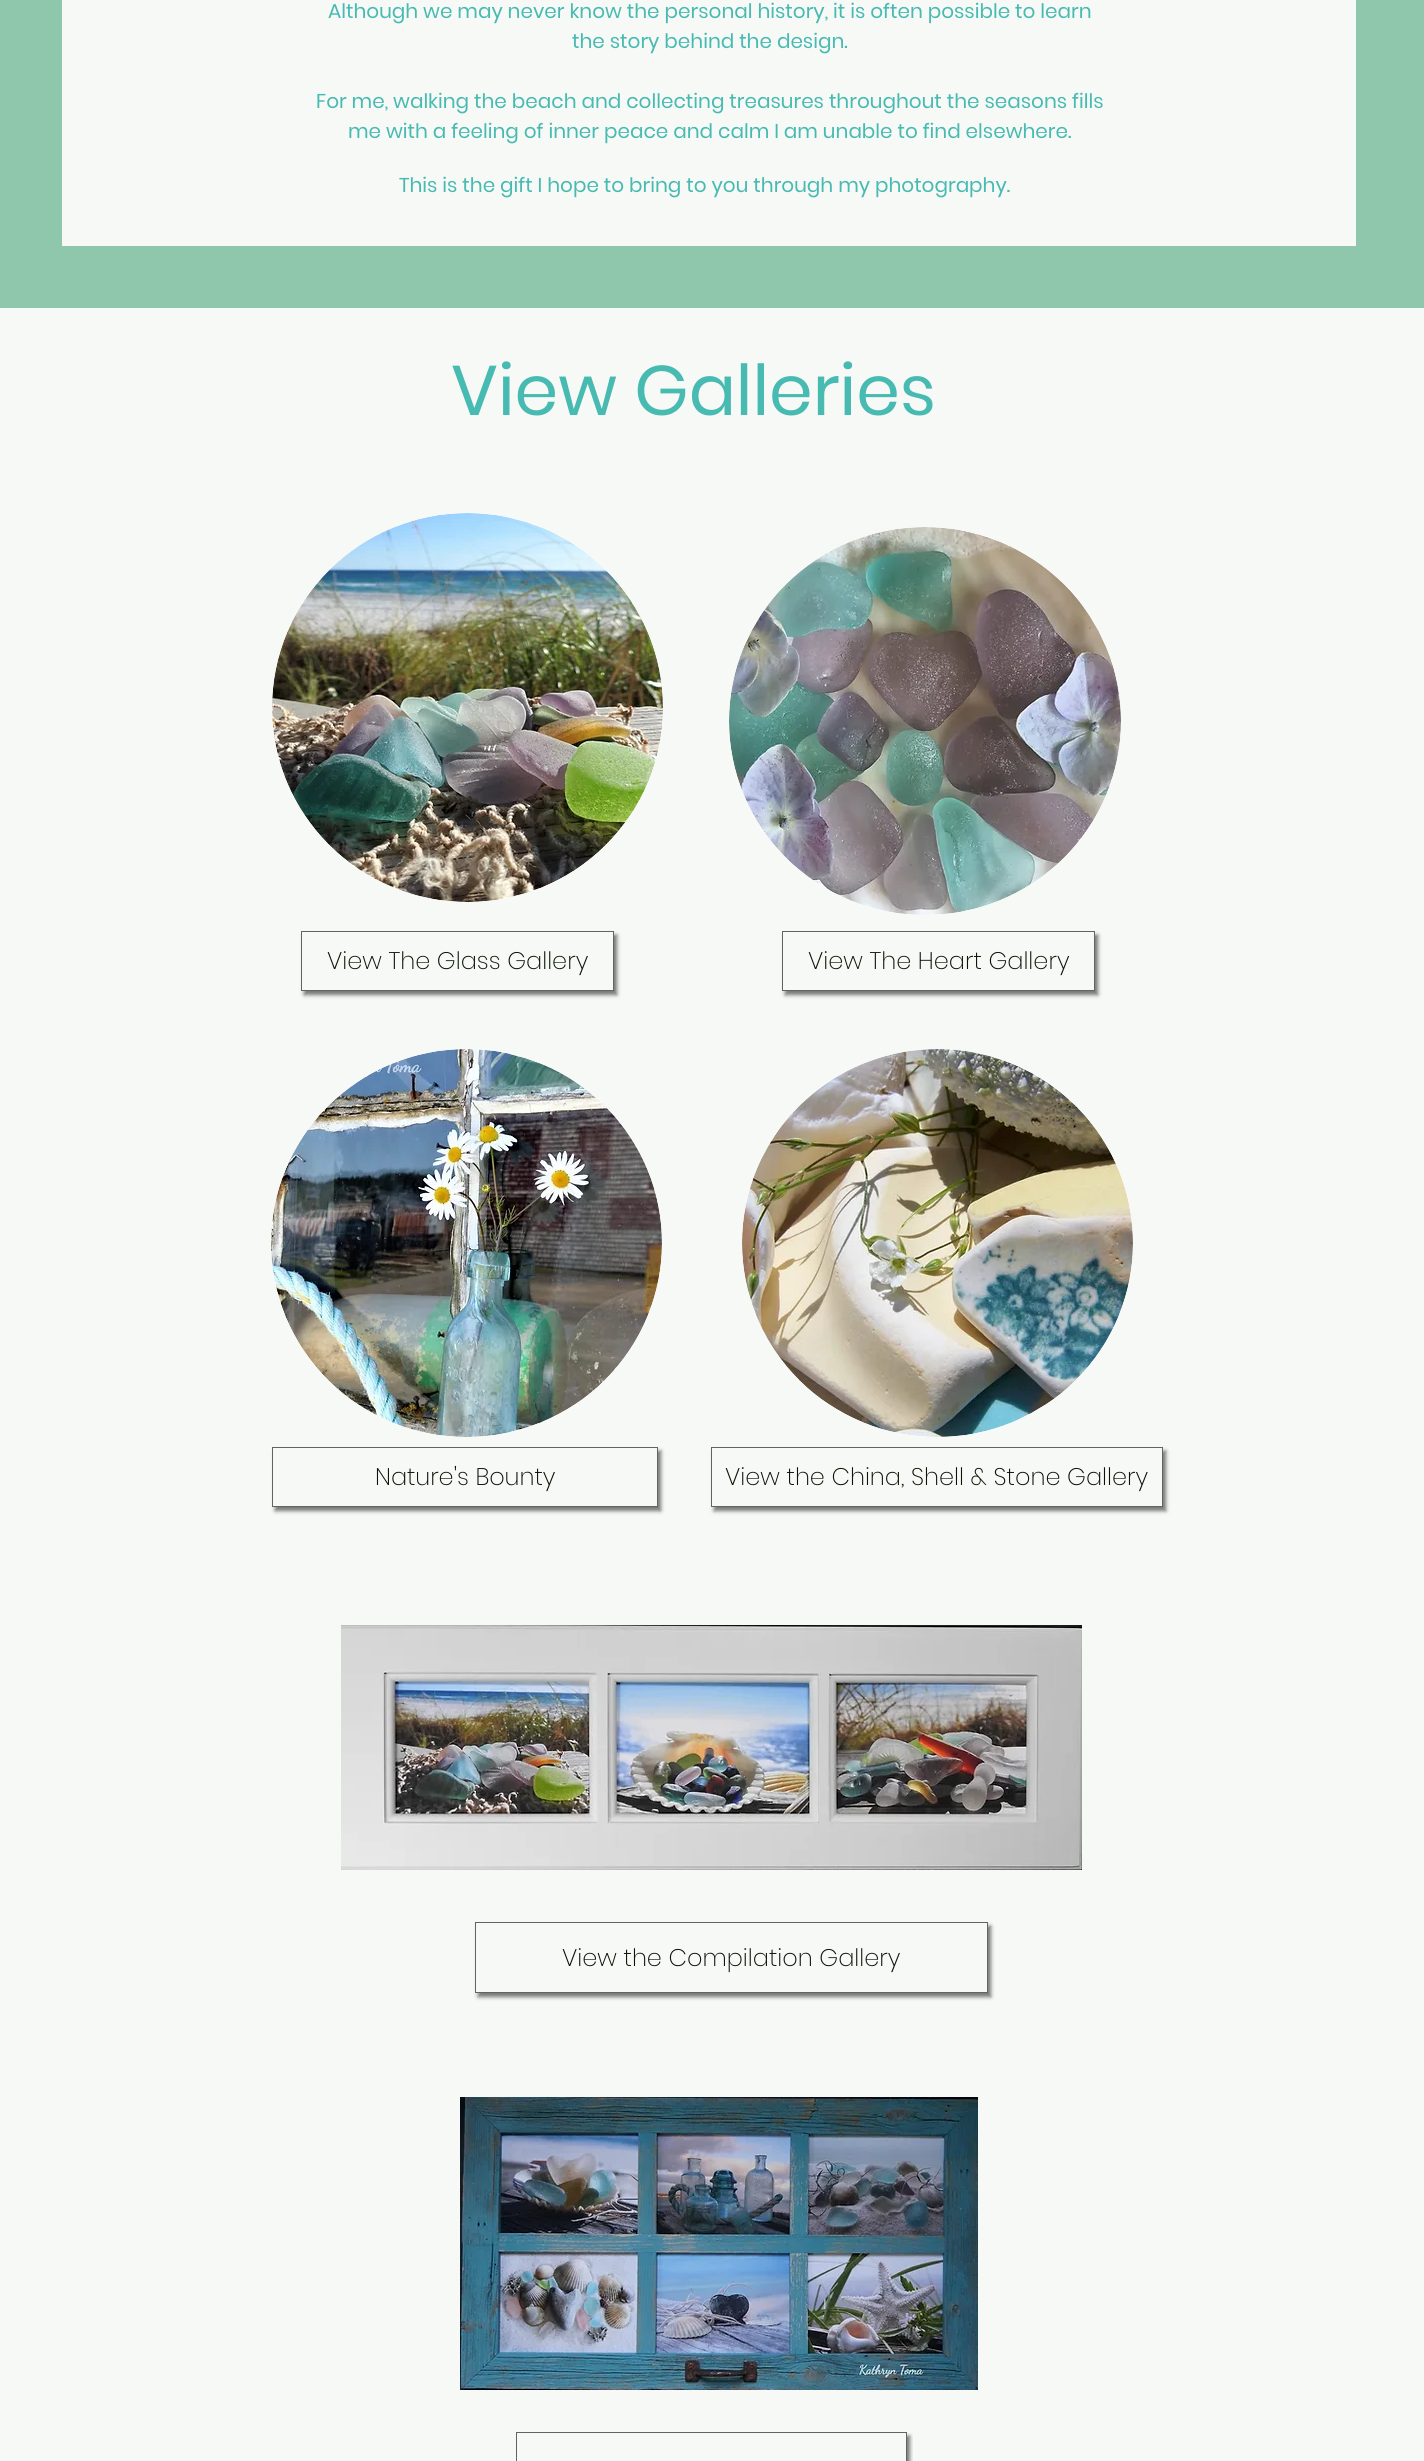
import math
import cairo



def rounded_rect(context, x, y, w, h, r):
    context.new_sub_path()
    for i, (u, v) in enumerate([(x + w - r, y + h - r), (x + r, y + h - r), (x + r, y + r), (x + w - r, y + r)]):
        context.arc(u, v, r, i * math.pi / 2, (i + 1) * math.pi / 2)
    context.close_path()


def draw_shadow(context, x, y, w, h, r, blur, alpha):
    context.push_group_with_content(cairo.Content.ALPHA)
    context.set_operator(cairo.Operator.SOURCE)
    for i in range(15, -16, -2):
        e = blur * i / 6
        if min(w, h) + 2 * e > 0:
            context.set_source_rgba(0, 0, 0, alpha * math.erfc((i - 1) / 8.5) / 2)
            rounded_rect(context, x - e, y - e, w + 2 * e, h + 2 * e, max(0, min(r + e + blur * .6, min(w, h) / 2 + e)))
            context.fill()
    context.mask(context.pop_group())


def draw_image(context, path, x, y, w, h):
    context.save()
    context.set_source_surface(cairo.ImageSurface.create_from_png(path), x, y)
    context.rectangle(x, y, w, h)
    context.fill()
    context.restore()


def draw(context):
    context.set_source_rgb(246 / 255, 249 / 255, 245 / 255)
    context.paint()
    context.set_source_rgb(143 / 255, 199 / 255, 173 / 255)
    context.rectangle(0, 0, 1424, 308)
    context.fill()
    context.set_source_rgb(246 / 255, 249 / 255, 245 / 255)
    context.rectangle(62, 0, 1294, 246)
    context.fill()
    context.set_source_rgb(1, 1, 1)
    context.new_path()
    context.move_to(467.5, 513)
    context.curve_to(575.5, 513, 663, 600, 663, 707.5)
    context.curve_to(663, 815, 575.5, 902, 467.5, 902)
    context.curve_to(359.5, 902, 272, 815, 272, 707.5)
    context.curve_to(272, 600, 359.5, 513, 467.5, 513)
    context.close_path()
    context.fill()
    draw_image(context, "images/1.png", 272, 513, 391, 389)
    context.new_path()
    context.move_to(925, 527)
    context.curve_to(1033, 527, 1121, 614, 1121, 721)
    context.curve_to(1121, 828, 1033, 915, 925, 915)
    context.curve_to(817, 915, 729, 828, 729, 721)
    context.curve_to(729, 614, 817, 527, 925, 527)
    context.close_path()
    context.fill()
    draw_image(context, "images/2.png", 729, 527, 392, 388)
    context.save()
    context.set_fill_rule(cairo.FillRule.EVEN_ODD)
    context.new_path()
    context.move_to(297, 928)
    context.line_to(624, 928)
    context.line_to(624, 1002)
    context.line_to(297, 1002)
    context.close_path()
    context.move_to(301, 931)
    context.line_to(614, 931)
    context.line_to(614, 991)
    context.line_to(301, 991)
    context.close_path()
    context.clip()
    context.set_source_rgb(0, 0, 0)
    draw_shadow(context, 304, 935, 313, 60, 0, 2, 0.52)
    context.restore()
    context.rectangle(301.5, 931.5, 312, 59)
    context.set_source_rgb(98 / 255, 100 / 255, 98 / 255)
    context.set_line_width(1)
    context.stroke()
    context.save()
    context.set_fill_rule(cairo.FillRule.EVEN_ODD)
    context.new_path()
    context.move_to(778, 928)
    context.line_to(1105, 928)
    context.line_to(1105, 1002)
    context.line_to(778, 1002)
    context.close_path()
    context.move_to(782, 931)
    context.line_to(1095, 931)
    context.line_to(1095, 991)
    context.line_to(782, 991)
    context.close_path()
    context.clip()
    context.set_source_rgb(0, 0, 0)
    draw_shadow(context, 785, 935, 313, 60, 0, 2, 0.52)
    context.restore()
    context.rectangle(782.5, 931.5, 312, 59)
    context.stroke()
    context.set_source_rgb(1, 1, 1)
    context.new_path()
    context.move_to(466.5, 1049)
    context.curve_to(574.5, 1049, 662, 1136, 662, 1243)
    context.curve_to(662, 1350, 574.5, 1437, 466.5, 1437)
    context.curve_to(358.5, 1437, 271, 1350, 271, 1243)
    context.curve_to(271, 1136, 358.5, 1049, 466.5, 1049)
    context.close_path()
    context.fill()
    draw_image(context, "images/3.png", 271, 1049, 391, 388)
    context.new_path()
    context.move_to(937.5, 1049)
    context.curve_to(1045.5, 1049, 1133, 1136, 1133, 1243)
    context.curve_to(1133, 1350, 1045.5, 1437, 937.5, 1437)
    context.curve_to(829.5, 1437, 742, 1350, 742, 1243)
    context.curve_to(742, 1136, 829.5, 1049, 937.5, 1049)
    context.close_path()
    context.fill()
    draw_image(context, "images/4.png", 742, 1049, 391, 388)
    context.save()
    context.set_fill_rule(cairo.FillRule.EVEN_ODD)
    context.new_path()
    context.move_to(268, 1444)
    context.line_to(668, 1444)
    context.line_to(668, 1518)
    context.line_to(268, 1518)
    context.close_path()
    context.move_to(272, 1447)
    context.line_to(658, 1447)
    context.line_to(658, 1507)
    context.line_to(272, 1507)
    context.close_path()
    context.clip()
    context.set_source_rgb(0, 0, 0)
    draw_shadow(context, 275, 1451, 386, 60, 0, 2, 0.52)
    context.restore()
    context.rectangle(272.5, 1447.5, 385, 59)
    context.set_source_rgb(98 / 255, 100 / 255, 98 / 255)
    context.stroke()
    context.save()
    context.set_fill_rule(cairo.FillRule.EVEN_ODD)
    context.new_path()
    context.move_to(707, 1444)
    context.line_to(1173, 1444)
    context.line_to(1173, 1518)
    context.line_to(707, 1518)
    context.close_path()
    context.move_to(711, 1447)
    context.line_to(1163, 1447)
    context.line_to(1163, 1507)
    context.line_to(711, 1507)
    context.close_path()
    context.clip()
    context.set_source_rgb(0, 0, 0)
    draw_shadow(context, 714, 1451, 452, 60, 0, 2, 0.52)
    context.restore()
    context.rectangle(711.5, 1447.5, 451, 59)
    context.stroke()
    draw_image(context, "images/5.png", 341, 1625, 741, 245)
    context.save()
    context.set_fill_rule(cairo.FillRule.EVEN_ODD)
    context.new_path()
    context.move_to(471, 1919)
    context.line_to(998, 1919)
    context.line_to(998, 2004)
    context.line_to(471, 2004)
    context.close_path()
    context.move_to(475, 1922)
    context.line_to(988, 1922)
    context.line_to(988, 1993)
    context.line_to(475, 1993)
    context.close_path()
    context.clip()
    context.set_source_rgb(0, 0, 0)
    draw_shadow(context, 478, 1926, 513, 71, 0, 2, 0.52)
    context.restore()
    context.rectangle(475.5, 1922.5, 512, 70)
    context.stroke()
    draw_image(context, "images/6.png", 460, 2097, 518, 293)
    context.save()
    context.rectangle(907, 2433, 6, 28)
    context.clip()
    context.set_source_rgb(0, 0, 0)
    draw_shadow(context, 519, 2436, 391, 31, 0, 2, 0.52)
    context.restore()
    context.rectangle(516.5, 2432.5, 390, 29)
    context.stroke()
    context.select_font_face("Poppins")
    context.set_font_size(20)
    context.set_source_rgb(71 / 255, 186 / 255, 178 / 255)
    context.move_to(328, 18)
    context.show_text("Although we may never know the personal history, it is often possible to learn")
    context.move_to(572, 48)
    context.show_text("the story behind the design.")
    context.move_to(316, 108)
    context.show_text("For me, walking the beach and collecting treasures throughout the seasons fills")
    context.move_to(348, 138)
    context.show_text("me with a feeling of inner peace and calm I am unable to find elsewhere.")
    context.move_to(399, 192)
    context.show_text("This is the gift I hope to bring to you through my photography.")
    context.set_font_size(70)
    context.move_to(451, 415)
    context.show_text("View Galleries")
    context.select_font_face("Poppins ExtraLight")
    context.set_font_size(24)
    context.set_source_rgb(9 / 255, 20 / 255, 5 / 255)
    context.move_to(327, 969)
    context.show_text("View The Glass Gallery")
    context.move_to(808, 969)
    context.show_text("View The Heart Gallery")
    context.move_to(375, 1485)
    context.show_text("Nature's Bounty")
    context.move_to(725, 1485)
    context.show_text("View the China, Shell & Stone Gallery")
    context.move_to(562, 1966)
    context.show_text("View the Compilation Gallery")


surface = cairo.ImageSurface(cairo.Format.RGB24, 1424, 2461)
context = cairo.Context(surface)
options = cairo.FontOptions()
options.set_hint_metrics(cairo.HintMetrics.OFF)
options.set_hint_style(cairo.HintStyle.NONE)
context.set_font_options(options)
context.set_miter_limit(4)
draw(context)
surface.write_to_png("out.png")
